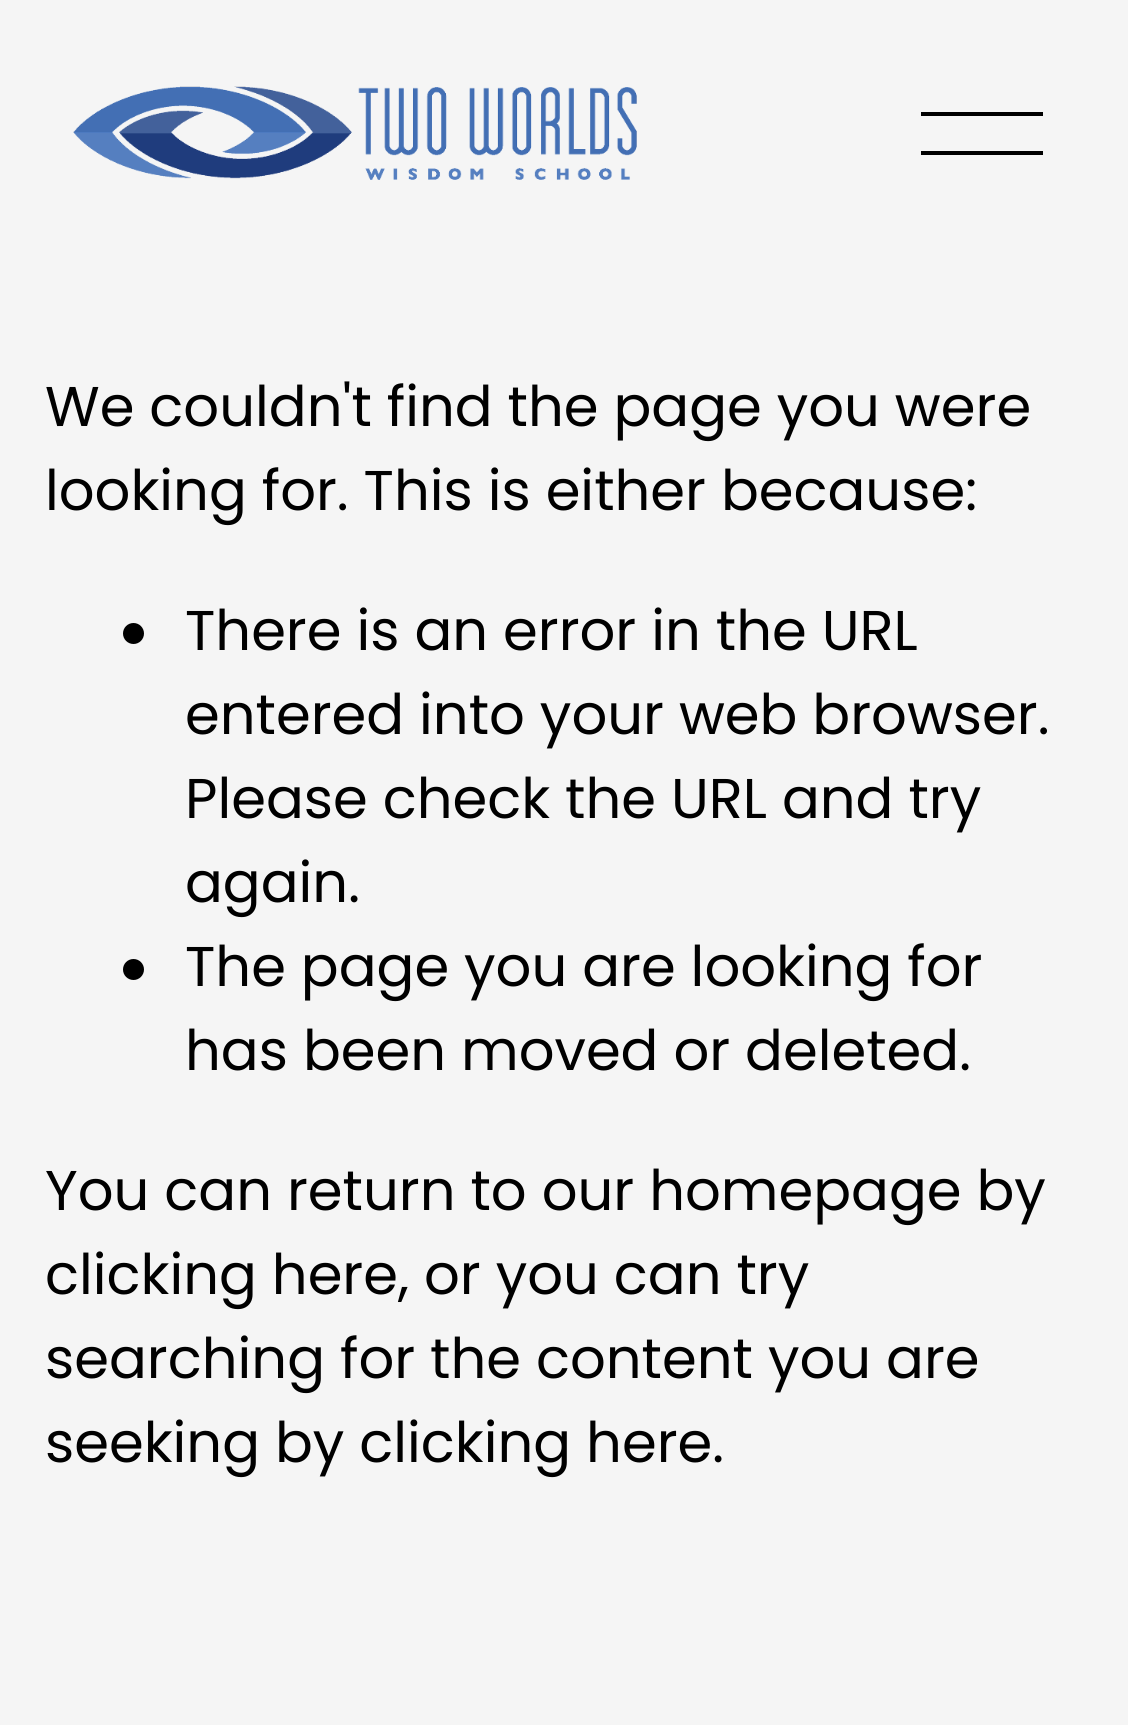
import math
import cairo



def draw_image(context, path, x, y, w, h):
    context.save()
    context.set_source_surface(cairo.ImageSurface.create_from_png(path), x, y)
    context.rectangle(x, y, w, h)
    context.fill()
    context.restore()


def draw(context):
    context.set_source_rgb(245 / 255, 245 / 255, 245 / 255)
    context.paint()
    draw_image(context, "images/1.png", 73, 86, 564, 94)
    context.set_source_rgb(0, 0, 0)
    context.rectangle(921, 112, 122, 4)
    context.fill()
    context.rectangle(921, 151, 122, 4)
    context.fill()
    context.arc(133.5, 633.5, 10.5, 0, 2 * math.pi)
    context.fill()
    context.arc(133.5, 969.5, 10.5, 0, 2 * math.pi)
    context.fill()
    context.select_font_face("Poppins")
    context.set_font_size(56)
    context.move_to(45, 426)
    context.show_text("We couldn't find the page you were")
    context.move_to(45, 510)
    context.show_text("looking for. This is either because:")
    context.move_to(185, 650)
    context.show_text("There is an error in the URL")
    context.move_to(185, 734)
    context.show_text("entered into your web browser.")
    context.move_to(185, 818)
    context.show_text("Please check the URL and try")
    context.move_to(185, 902)
    context.show_text("again.")
    context.move_to(185, 986)
    context.show_text("The page you are looking for")
    context.move_to(185, 1070)
    context.show_text("has been moved or deleted.")
    context.move_to(45, 1210)
    context.show_text("You can return to our homepage by")
    context.move_to(45, 1294)
    context.show_text("clicking here, or you can try")
    context.move_to(45, 1378)
    context.show_text("searching for the content you are")
    context.move_to(45, 1462)
    context.show_text("seeking by clicking here.")


surface = cairo.ImageSurface(cairo.Format.RGB24, 1128, 1725)
context = cairo.Context(surface)
options = cairo.FontOptions()
options.set_hint_metrics(cairo.HintMetrics.OFF)
options.set_hint_style(cairo.HintStyle.NONE)
context.set_font_options(options)
context.set_miter_limit(4)
draw(context)
surface.write_to_png("out.png")
